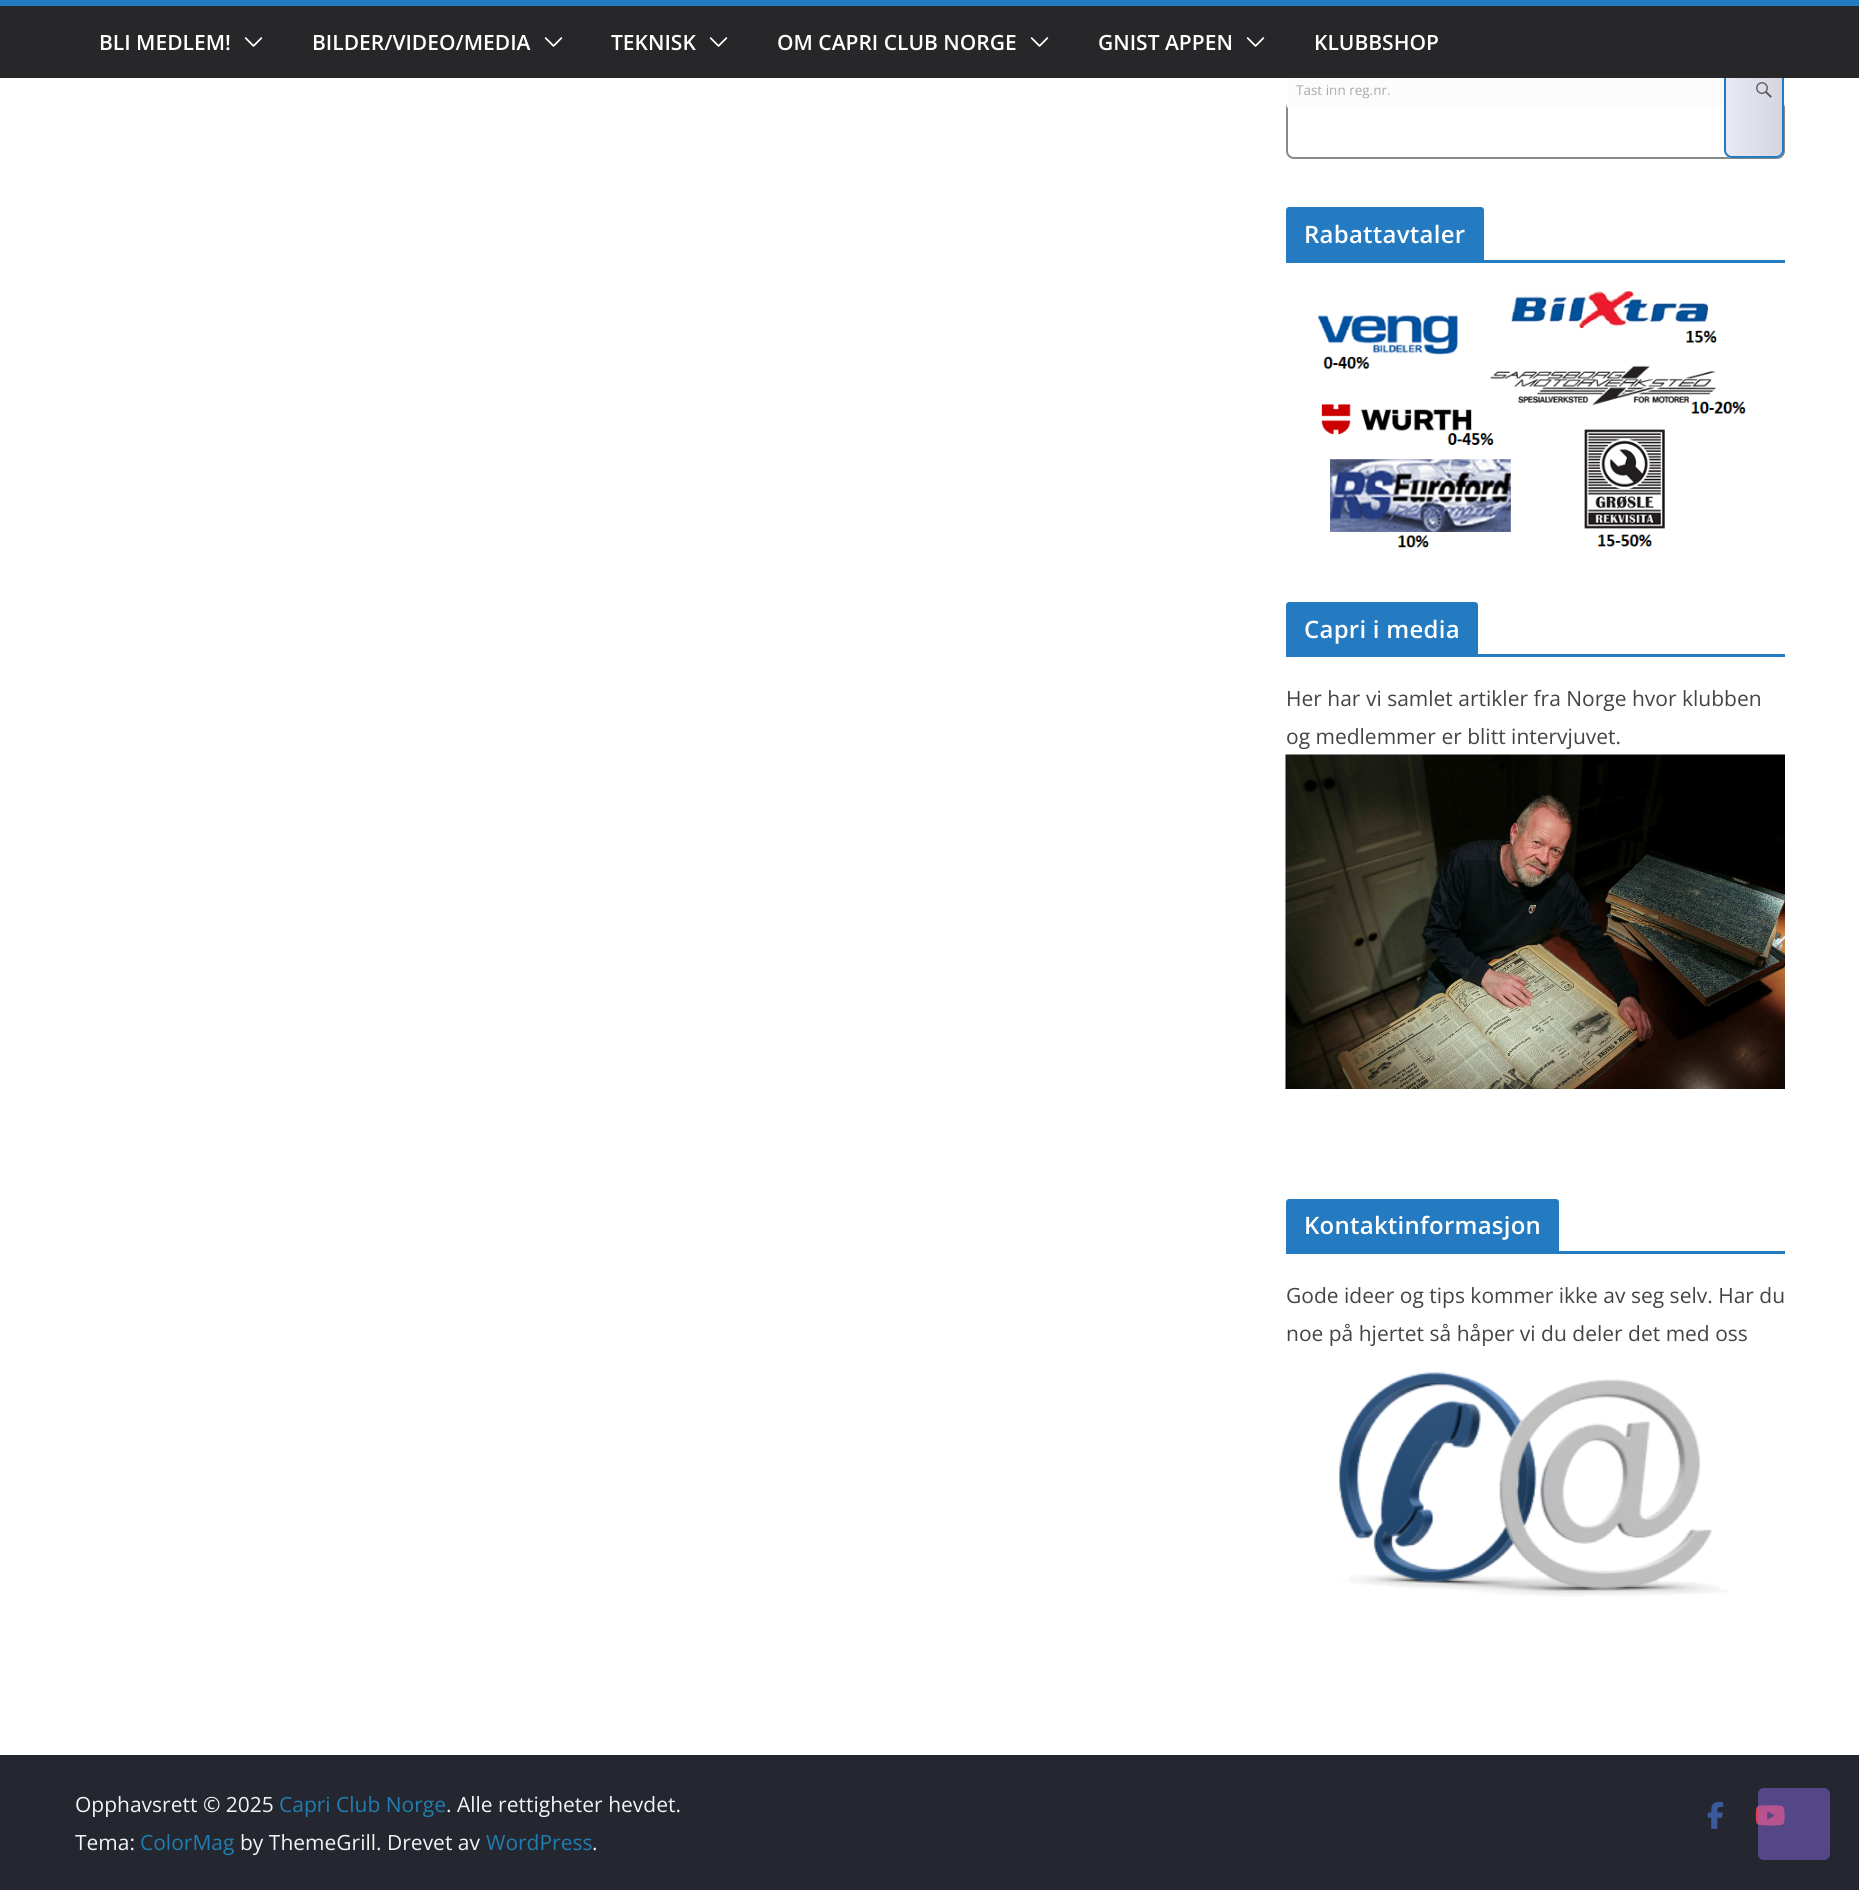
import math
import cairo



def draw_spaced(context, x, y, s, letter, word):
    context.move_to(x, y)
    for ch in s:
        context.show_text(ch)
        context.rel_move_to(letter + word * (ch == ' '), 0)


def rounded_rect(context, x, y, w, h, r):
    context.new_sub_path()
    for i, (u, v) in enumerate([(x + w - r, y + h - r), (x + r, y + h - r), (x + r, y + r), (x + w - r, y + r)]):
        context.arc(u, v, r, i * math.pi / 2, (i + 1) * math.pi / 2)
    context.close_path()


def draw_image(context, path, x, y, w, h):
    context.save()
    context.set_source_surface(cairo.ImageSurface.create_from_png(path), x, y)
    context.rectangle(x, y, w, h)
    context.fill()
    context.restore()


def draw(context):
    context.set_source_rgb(1, 1, 1)
    context.paint()
    rounded_rect(context, 1287, 69, 497, 89, 7)
    context.set_source_rgb(136 / 255, 136 / 255, 136 / 255)
    context.stroke()
    context.set_source_rgb(252 / 255, 252 / 255, 252 / 255)
    rounded_rect(context, 1287, 72, 497, 38, 7)
    context.fill_preserve()
    context.set_source_rgb(1, 1, 1)
    context.stroke()
    context.save()
    rounded_rect(context, 1724, 69, 60, 89, 8)
    context.clip()
    gradient = cairo.LinearGradient(1782, 113, 1725, 113)
    gradient.add_color_stop_rgba(0, 213 / 255, 213 / 255, 224 / 255, 1)
    gradient.add_color_stop_rgba(1, 234 / 255, 234 / 255, 245 / 255, 1)
    context.set_source(gradient)
    context.rectangle(1725, 78, 57, 80)
    context.fill()
    context.restore()
    rounded_rect(context, 1725, 70, 58, 87, 7)
    context.set_source_rgb(37 / 255, 123 / 255, 193 / 255)
    context.stroke()
    context.set_source_rgb(39 / 255, 39 / 255, 42 / 255)
    context.rectangle(0, 6, 1859, 72)
    context.fill()
    context.set_source_rgb(37 / 255, 123 / 255, 193 / 255)
    context.rectangle(0, 0, 1859, 6)
    context.fill()
    draw_image(context, "images/1.png", 244, 37, 19, 10)
    draw_image(context, "images/1.png", 544, 37, 19, 10)
    draw_image(context, "images/1.png", 709, 37, 19, 10)
    draw_image(context, "images/1.png", 1030, 37, 19, 10)
    draw_image(context, "images/1.png", 1246, 37, 19, 10)
    draw_image(context, "images/2.png", 1756, 82, 16, 16)
    context.rectangle(1286, 260, 499, 3)
    context.fill()
    context.new_path()
    context.move_to(1289, 207)
    context.line_to(1481, 207)
    context.curve_to(1482.5, 207, 1484, 208.5, 1484, 210)
    context.line_to(1484, 260)
    context.line_to(1286, 260)
    context.line_to(1286, 210)
    context.curve_to(1286, 208.5, 1287.5, 207, 1289, 207)
    context.close_path()
    context.fill()
    draw_image(context, "images/3.png", 1318, 291, 428, 257)
    context.rectangle(1286, 654, 499, 3)
    context.fill()
    context.new_path()
    context.move_to(1289, 602)
    context.line_to(1475, 602)
    context.curve_to(1476.5, 602, 1478, 603.5, 1478, 605)
    context.line_to(1478, 654)
    context.line_to(1286, 654)
    context.line_to(1286, 605)
    context.curve_to(1286, 603.5, 1287.5, 602, 1289, 602)
    context.close_path()
    context.fill()
    draw_image(context, "images/4.png", 1285, 754, 500, 335)
    context.rectangle(1286, 1251, 499, 3)
    context.fill()
    context.new_path()
    context.move_to(1289, 1199)
    context.line_to(1556, 1199)
    context.curve_to(1557.5, 1199, 1559, 1200.5, 1559, 1202)
    context.line_to(1559, 1251)
    context.line_to(1286, 1251)
    context.line_to(1286, 1202)
    context.curve_to(1286, 1200.5, 1287.5, 1199, 1289, 1199)
    context.close_path()
    context.fill()
    draw_image(context, "images/5.png", 1339, 1372, 390, 225)
    context.set_source_rgb(37 / 255, 39 / 255, 48 / 255)
    context.rectangle(0, 1755, 1859, 135)
    context.fill()
    draw_image(context, "images/6.png", 1707, 1801, 17, 28)
    draw_image(context, "images/7.png", 1755, 1805, 30, 21)
    context.set_source_rgba(130 / 255, 105 / 255, 223 / 255, 0.5)
    rounded_rect(context, 1758, 1788, 72, 72, 6)
    context.fill()
    context.select_font_face("Open Sans SemiBold")
    context.set_font_size(21)
    context.set_source_rgb(1, 1, 1)
    context.move_to(99, 50)
    context.show_text("BLI MEDLEM!")
    context.move_to(312, 50)
    context.show_text("BILDER/VIDEO/MEDIA")
    context.move_to(611, 50)
    context.show_text("TEKNISK")
    context.move_to(777, 50)
    context.show_text("OM CAPRI CLUB NORGE")
    context.move_to(1098, 50)
    context.show_text("GNIST APPEN")
    context.move_to(1314, 50)
    context.show_text("KLUBBSHOP")
    context.select_font_face("Open Sans")
    context.set_font_size(13.5)
    context.set_source_rgb(170 / 255, 170 / 255, 170 / 255)
    context.move_to(1296, 95)
    context.show_text("Tast inn reg.nr.")
    context.select_font_face("Open Sans SemiBold")
    context.set_font_size(24)
    context.set_source_rgb(1, 1, 1)
    draw_spaced(context, 1304, 243, "Rabattavtaler", 0.25, 0)
    draw_spaced(context, 1304, 638, "Capri i media", 0.25, 0)
    context.select_font_face("Open Sans")
    context.set_font_size(21)
    context.set_source_rgb(68 / 255, 68 / 255, 68 / 255)
    context.move_to(1286, 706)
    context.show_text("Her har vi samlet artikler fra Norge hvor klubben")
    context.move_to(1286, 744)
    context.show_text("og medlemmer er blitt intervjuvet.")
    context.select_font_face("Open Sans SemiBold")
    context.set_font_size(24)
    context.set_source_rgb(1, 1, 1)
    draw_spaced(context, 1304, 1234, "Kontaktinformasjon", 0.25, 0)
    context.select_font_face("Open Sans")
    context.set_font_size(21)
    context.set_source_rgb(68 / 255, 68 / 255, 68 / 255)
    context.move_to(1286, 1303)
    context.show_text("Gode ideer og tips kommer ikke av seg selv. Har du")
    context.move_to(1286, 1341)
    context.show_text("noe på hjertet så håper vi du deler det med oss")
    context.set_source_rgb(244 / 255, 244 / 255, 245 / 255)
    context.move_to(75, 1812)
    context.show_text("Opphavsrett © 2025")
    context.set_source_rgb(32 / 255, 125 / 255, 175 / 255)
    context.move_to(279, 1812)
    context.show_text("Capri Club Norge")
    context.set_source_rgb(244 / 255, 244 / 255, 245 / 255)
    context.move_to(446, 1812)
    context.show_text(". Alle rettigheter hevdet.")
    context.move_to(75, 1850)
    context.show_text("Tema:")
    context.set_source_rgb(32 / 255, 125 / 255, 175 / 255)
    context.move_to(140, 1850)
    context.show_text("ColorMag")
    context.set_source_rgb(244 / 255, 244 / 255, 245 / 255)
    context.move_to(240, 1850)
    context.show_text("by ThemeGrill. Drevet av")
    context.set_source_rgb(32 / 255, 125 / 255, 175 / 255)
    context.move_to(486, 1850)
    context.show_text("WordPress")
    context.set_source_rgb(244 / 255, 244 / 255, 245 / 255)
    context.move_to(592, 1850)
    context.show_text(".")


surface = cairo.ImageSurface(cairo.Format.RGB24, 1859, 1890)
context = cairo.Context(surface)
options = cairo.FontOptions()
options.set_hint_metrics(cairo.HintMetrics.OFF)
options.set_hint_style(cairo.HintStyle.NONE)
context.set_font_options(options)
context.set_miter_limit(4)
draw(context)
surface.write_to_png("out.png")
